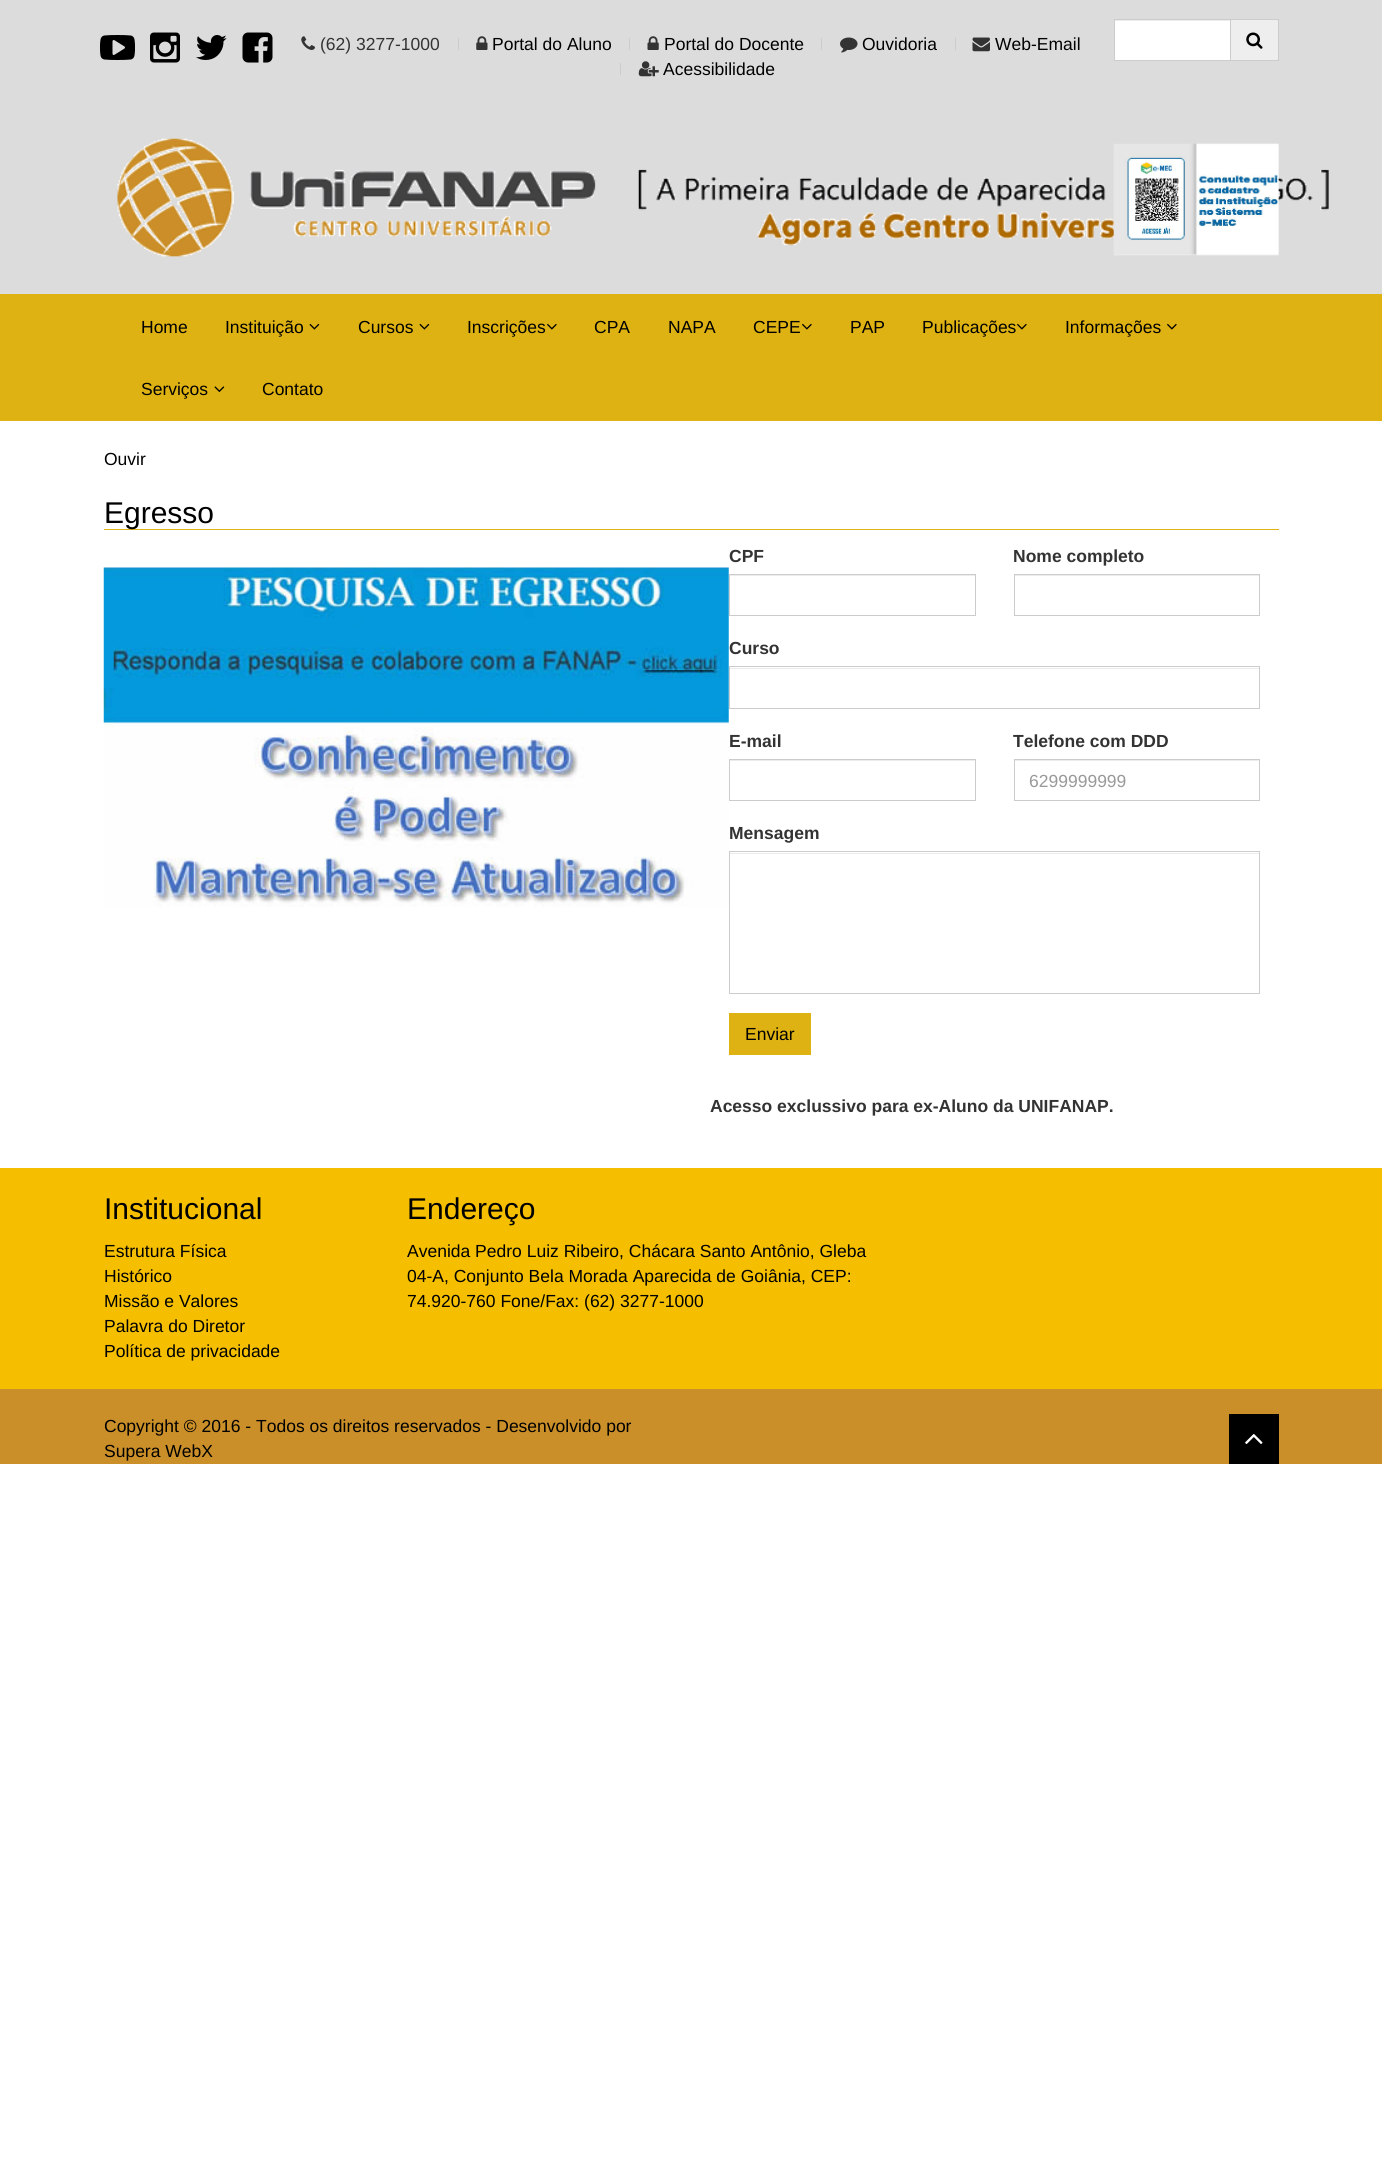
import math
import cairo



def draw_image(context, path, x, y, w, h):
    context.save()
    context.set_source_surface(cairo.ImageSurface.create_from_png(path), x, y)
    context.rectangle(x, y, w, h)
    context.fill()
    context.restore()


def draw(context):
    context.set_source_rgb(1, 1, 1)
    context.paint()
    context.set_source_rgb(220 / 255, 220 / 255, 220 / 255)
    context.rectangle(0, 0, 1382, 294)
    context.fill()
    draw_image(context, "images/1.png", 100, 35, 35, 25)
    draw_image(context, "images/2.png", 150, 32, 30, 31)
    draw_image(context, "images/3.png", 196, 35, 31, 25)
    draw_image(context, "images/4.png", 242, 32, 31, 31)
    draw_image(context, "images/5.png", 301, 36, 14, 14)
    context.set_source_rgb(204 / 255, 204 / 255, 204 / 255)
    context.rectangle(458, 38, 1, 12)
    context.fill()
    draw_image(context, "images/6.png", 476, 36, 12, 14)
    context.rectangle(629, 38, 1, 12)
    context.fill()
    draw_image(context, "images/7.png", 647, 36, 12, 14)
    context.rectangle(821, 38, 1, 12)
    context.fill()
    draw_image(context, "images/8.png", 840, 37, 18, 16)
    context.rectangle(955, 38, 1, 12)
    context.fill()
    draw_image(context, "images/9.png", 972, 37, 18, 15)
    context.rectangle(620, 63, 1, 12)
    context.fill()
    draw_image(context, "images/10.png", 638, 61, 21, 16)
    context.set_source_rgb(1, 1, 1)
    context.rectangle(1115, 21, 115, 39)
    context.fill()
    context.set_source_rgb(236 / 255, 236 / 255, 236 / 255)
    context.rectangle(1115, 20, 115, 1)
    context.fill()
    context.rectangle(1114.5, 19.5, 116, 41)
    context.set_source_rgb(204 / 255, 204 / 255, 204 / 255)
    context.set_line_width(1)
    context.stroke()
    context.set_source_rgb(238 / 255, 238 / 255, 238 / 255)
    context.rectangle(1231, 20, 47, 40)
    context.fill()
    context.set_source_rgb(204 / 255, 204 / 255, 204 / 255)
    context.rectangle(1231, 19, 48, 1)
    context.fill()
    context.rectangle(1278, 19, 1, 42)
    context.fill()
    context.rectangle(1231, 60, 48, 1)
    context.fill()
    draw_image(context, "images/11.png", 1246, 32, 17, 17)
    draw_image(context, "images/12.png", 117, 138, 1212, 119)
    draw_image(context, "images/13.png", 1113, 143, 166, 113)
    context.set_source_rgb(222 / 255, 178 / 255, 19 / 255)
    context.rectangle(0, 294, 1382, 127)
    context.fill()
    draw_image(context, "images/14.png", 309, 323, 11, 7)
    draw_image(context, "images/14.png", 419, 323, 11, 7)
    draw_image(context, "images/15.png", 547, 323, 10, 7)
    draw_image(context, "images/15.png", 802, 323, 10, 7)
    draw_image(context, "images/15.png", 1017, 323, 10, 7)
    draw_image(context, "images/15.png", 1167, 323, 10, 7)
    draw_image(context, "images/16.png", 214, 386, 11, 6)
    context.rectangle(104, 529, 1175, 1)
    context.fill()
    draw_image(context, "images/17.png", 103, 567, 626, 340)
    context.set_source_rgb(236 / 255, 236 / 255, 236 / 255)
    context.rectangle(730, 575, 245, 1)
    context.fill()
    context.rectangle(729.5, 574.5, 246, 41)
    context.set_source_rgb(204 / 255, 204 / 255, 204 / 255)
    context.stroke()
    context.set_source_rgb(236 / 255, 236 / 255, 236 / 255)
    context.rectangle(1015, 575, 244, 1)
    context.fill()
    context.rectangle(1014.5, 574.5, 245, 41)
    context.set_source_rgb(204 / 255, 204 / 255, 204 / 255)
    context.stroke()
    context.set_source_rgb(236 / 255, 236 / 255, 236 / 255)
    context.rectangle(730, 668, 529, 1)
    context.fill()
    context.rectangle(729.5, 666.5, 530, 42)
    context.set_source_rgb(204 / 255, 204 / 255, 204 / 255)
    context.stroke()
    context.set_source_rgb(236 / 255, 236 / 255, 236 / 255)
    context.rectangle(730, 760, 245, 1)
    context.fill()
    context.rectangle(729.5, 759.5, 246, 41)
    context.set_source_rgb(204 / 255, 204 / 255, 204 / 255)
    context.stroke()
    context.set_source_rgb(236 / 255, 236 / 255, 236 / 255)
    context.rectangle(1015, 760, 244, 1)
    context.fill()
    context.rectangle(1014.5, 759.5, 245, 41)
    context.set_source_rgb(204 / 255, 204 / 255, 204 / 255)
    context.stroke()
    context.set_source_rgb(236 / 255, 236 / 255, 236 / 255)
    context.rectangle(730, 853, 529, 1)
    context.fill()
    context.rectangle(729.5, 851.5, 530, 142)
    context.set_source_rgb(204 / 255, 204 / 255, 204 / 255)
    context.stroke()
    context.set_source_rgb(222 / 255, 178 / 255, 19 / 255)
    context.rectangle(729, 1013, 82, 42)
    context.fill()
    context.set_source_rgb(245 / 255, 191 / 255, 0)
    context.rectangle(0, 1168, 1382, 221)
    context.fill()
    context.set_source_rgb(203 / 255, 143 / 255, 41 / 255)
    context.rectangle(0, 1389, 1382, 75)
    context.fill()
    context.set_source_rgb(0, 0, 0)
    context.rectangle(1229, 1414, 50, 50)
    context.fill()
    draw_image(context, "images/18.png", 1245, 1434, 18, 10)
    context.select_font_face("Liberation Sans")
    context.set_font_size(17.5)
    context.set_source_rgb(51 / 255, 51 / 255, 51 / 255)
    context.move_to(320, 50)
    context.show_text("(62) 3277-1000")
    context.set_source_rgb(0, 0, 0)
    context.move_to(492, 50)
    context.show_text("Portal do Aluno")
    context.move_to(664, 50)
    context.show_text("Portal do Docente")
    context.move_to(862, 50)
    context.show_text("Ouvidoria")
    context.move_to(995, 50)
    context.show_text("Web-Email")
    context.move_to(663, 75)
    context.show_text("Acessibilidade")
    context.move_to(141, 333)
    context.show_text("Home")
    context.move_to(225, 333)
    context.show_text("Instituição")
    context.move_to(358, 333)
    context.show_text("Cursos")
    context.move_to(467, 333)
    context.show_text("Inscrições")
    context.move_to(594, 333)
    context.show_text("CPA")
    context.move_to(668, 333)
    context.show_text("NAPA")
    context.move_to(753, 333)
    context.show_text("CEPE")
    context.move_to(850, 333)
    context.show_text("PAP")
    context.move_to(922, 333)
    context.show_text("Publicações")
    context.move_to(1065, 333)
    context.show_text("Informações")
    context.move_to(141, 395)
    context.show_text("Serviços")
    context.move_to(262, 395)
    context.show_text("Contato")
    context.move_to(104, 465)
    context.show_text("Ouvir")
    context.set_font_size(30)
    context.move_to(104, 523)
    context.show_text("Egresso")
    context.select_font_face("Liberation Sans", cairo.FontSlant.NORMAL, cairo.FontWeight.BOLD)
    context.set_font_size(17.5)
    context.set_source_rgb(51 / 255, 51 / 255, 51 / 255)
    context.move_to(729, 562)
    context.show_text("CPF")
    context.move_to(1013, 562)
    context.show_text("Nome completo")
    context.move_to(729, 654)
    context.show_text("Curso")
    context.move_to(729, 747)
    context.show_text("E-mail")
    context.move_to(1013, 747)
    context.show_text("Telefone com DDD")
    context.select_font_face("Liberation Sans")
    context.set_source_rgb(153 / 255, 153 / 255, 153 / 255)
    context.move_to(1029, 787)
    context.show_text("6299999999")
    context.select_font_face("Liberation Sans", cairo.FontSlant.NORMAL, cairo.FontWeight.BOLD)
    context.set_source_rgb(51 / 255, 51 / 255, 51 / 255)
    context.move_to(729, 839)
    context.show_text("Mensagem")
    context.select_font_face("Liberation Sans")
    context.set_source_rgb(0, 0, 0)
    context.move_to(745, 1040)
    context.show_text("Enviar")
    context.select_font_face("Liberation Sans", cairo.FontSlant.NORMAL, cairo.FontWeight.BOLD)
    context.set_source_rgb(51 / 255, 51 / 255, 51 / 255)
    context.move_to(710, 1112)
    context.show_text("Acesso exclussivo para ex-Aluno da UNIFANAP.")
    context.select_font_face("Liberation Sans")
    context.set_font_size(30)
    context.set_source_rgb(0, 0, 0)
    context.move_to(104, 1219)
    context.show_text("Institucional")
    context.set_font_size(17.5)
    context.move_to(104, 1257)
    context.show_text("Estrutura Física")
    context.move_to(104, 1282)
    context.show_text("Histórico")
    context.move_to(104, 1307)
    context.show_text("Missão e Valores")
    context.move_to(104, 1332)
    context.show_text("Palavra do Diretor")
    context.move_to(104, 1357)
    context.show_text("Política de privacidade")
    context.set_font_size(30)
    context.move_to(407, 1219)
    context.show_text("Endereço")
    context.set_font_size(17.5)
    context.move_to(407, 1257)
    context.show_text("Avenida Pedro Luiz Ribeiro, Chácara Santo Antônio, Gleba")
    context.move_to(407, 1282)
    context.show_text("04-A, Conjunto Bela Morada Aparecida de Goiânia, CEP:")
    context.move_to(407, 1307)
    context.show_text("74.920-760 Fone/Fax: (62) 3277-1000")
    context.move_to(104, 1432)
    context.show_text("Copyright © 2016 - Todos os direitos reservados - Desenvolvido por")
    context.move_to(104, 1457)
    context.show_text("Supera WebX")


surface = cairo.ImageSurface(cairo.Format.RGB24, 1382, 2173)
context = cairo.Context(surface)
options = cairo.FontOptions()
options.set_hint_metrics(cairo.HintMetrics.OFF)
options.set_hint_style(cairo.HintStyle.NONE)
context.set_font_options(options)
context.set_miter_limit(4)
draw(context)
surface.write_to_png("out.png")
